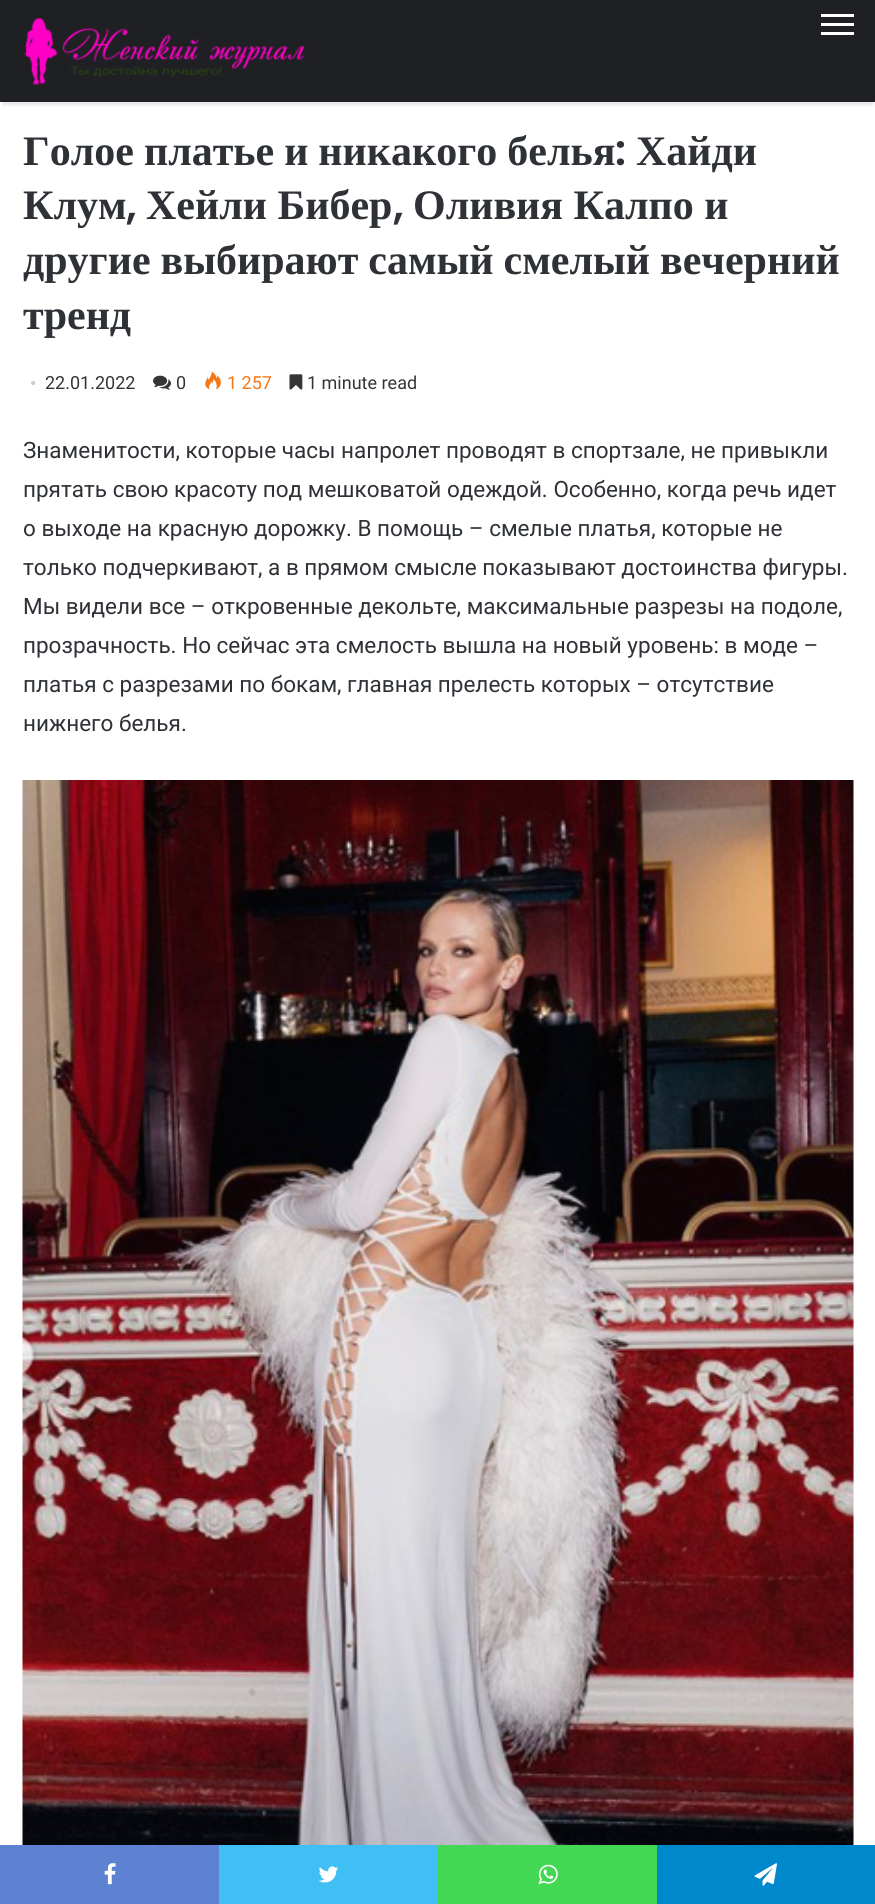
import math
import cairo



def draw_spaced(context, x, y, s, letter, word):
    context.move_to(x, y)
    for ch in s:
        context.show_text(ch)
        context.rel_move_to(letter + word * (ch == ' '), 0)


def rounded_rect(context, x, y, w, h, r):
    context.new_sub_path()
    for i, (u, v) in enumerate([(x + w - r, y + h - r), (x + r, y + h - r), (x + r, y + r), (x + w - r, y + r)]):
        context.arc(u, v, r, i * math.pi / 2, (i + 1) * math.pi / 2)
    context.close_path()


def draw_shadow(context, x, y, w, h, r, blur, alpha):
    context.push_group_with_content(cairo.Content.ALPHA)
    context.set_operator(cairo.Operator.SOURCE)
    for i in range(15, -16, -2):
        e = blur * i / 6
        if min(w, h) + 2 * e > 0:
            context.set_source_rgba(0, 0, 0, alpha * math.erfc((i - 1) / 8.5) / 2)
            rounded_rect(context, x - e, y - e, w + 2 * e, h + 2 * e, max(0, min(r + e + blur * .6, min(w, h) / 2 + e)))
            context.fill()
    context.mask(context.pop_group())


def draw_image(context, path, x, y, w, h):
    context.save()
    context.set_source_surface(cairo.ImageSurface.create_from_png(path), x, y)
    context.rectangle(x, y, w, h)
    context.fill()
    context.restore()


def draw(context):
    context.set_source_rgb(1, 1, 1)
    context.paint()
    context.set_source_rgb(0, 0, 0)
    draw_shadow(context, 3, 9, 870, 96, 0, 1.5, 0.1)
    context.set_source_rgb(31 / 255, 32 / 255, 36 / 255)
    context.rectangle(0, 0, 875, 102)
    context.fill()
    draw_image(context, "images/1.png", 24, 17, 281, 68)
    context.set_source_rgb(1, 1, 1)
    context.rectangle(821, 23, 33, 3)
    context.fill()
    context.rectangle(821, 14, 33, 3)
    context.fill()
    context.rectangle(821, 32, 33, 3)
    context.fill()
    draw_image(context, "images/2.png", 153, 375, 18, 15)
    draw_image(context, "images/3.png", 205, 371, 16, 19)
    draw_image(context, "images/4.png", 289, 374, 14, 16)
    draw_image(context, "images/5.png", 22, 780, 832, 1065)
    context.set_source_rgb(93 / 255, 130 / 255, 209 / 255)
    context.rectangle(0, 1845, 219, 59)
    context.fill()
    draw_image(context, "images/6.png", 104, 1863, 12, 22)
    context.set_source_rgb(64 / 255, 191 / 255, 245 / 255)
    context.rectangle(219, 1845, 219, 59)
    context.fill()
    draw_image(context, "images/7.png", 318, 1866, 21, 17)
    context.set_source_rgb(67 / 255, 216 / 255, 84 / 255)
    context.rectangle(438, 1845, 219, 59)
    context.fill()
    draw_image(context, "images/8.png", 538, 1864, 20, 21)
    context.set_source_rgb(0, 136 / 255, 204 / 255)
    context.rectangle(657, 1845, 218, 59)
    context.fill()
    draw_image(context, "images/9.png", 754, 1863, 23, 23)
    context.select_font_face("Liberation Serif", cairo.FontSlant.NORMAL, cairo.FontWeight.BOLD)
    context.set_font_size(42)
    context.set_source_rgb(46 / 255, 49 / 255, 54 / 255)
    draw_spaced(context, 23, 165, "Голое платье и никакого белья", 0, -0.5)
    context.select_font_face("Poppins SemiBold")
    context.move_to(615, 165)
    context.show_text(":")
    context.select_font_face("Liberation Serif", cairo.FontSlant.NORMAL, cairo.FontWeight.BOLD)
    context.move_to(636, 165)
    context.show_text("Хайди")
    context.move_to(23, 219)
    context.show_text("Клум")
    context.select_font_face("Poppins SemiBold")
    context.move_to(126, 219)
    context.show_text(",")
    context.select_font_face("Liberation Serif", cairo.FontSlant.NORMAL, cairo.FontWeight.BOLD)
    context.move_to(146, 219)
    context.show_text("Хейли Бибер")
    context.select_font_face("Poppins SemiBold")
    context.move_to(393, 219)
    context.show_text(",")
    context.select_font_face("Liberation Serif", cairo.FontSlant.NORMAL, cairo.FontWeight.BOLD)
    context.move_to(413, 219)
    context.show_text("Оливия Калпо и")
    draw_spaced(context, 23, 274, "другие выбирают самый смелый вечерний", 0, -0.5)
    context.move_to(23, 329)
    context.show_text("тренд")
    context.select_font_face("Liberation Serif")
    context.set_font_size(18)
    context.set_source_rgb(205 / 255, 205 / 255, 205 / 255)
    context.move_to(30, 389)
    context.show_text("•")
    context.select_font_face("Roboto")
    context.set_source_rgb(53 / 255, 53 / 255, 53 / 255)
    context.move_to(45, 389)
    context.show_text("22.01.2022")
    context.move_to(176, 389)
    context.show_text("0")
    context.set_source_rgb(244 / 255, 118 / 255, 20 / 255)
    context.move_to(227, 389)
    context.show_text("1 257")
    context.set_source_rgb(53 / 255, 53 / 255, 53 / 255)
    context.move_to(307, 389)
    context.show_text("1 minute read")
    context.set_font_size(22.5)
    context.set_source_rgb(46 / 255, 49 / 255, 54 / 255)
    context.move_to(23, 458)
    context.show_text("Знаменитости, которые часы напролет проводят в спортзале, не привыкли")
    context.move_to(23, 497)
    context.show_text("прятать свою красоту под мешковатой одеждой. Особенно, когда речь идет")
    context.move_to(23, 536)
    context.show_text("о выходе на красную дорожку. В помощь – смелые платья, которые не")
    context.move_to(23, 575)
    context.show_text("только подчеркивают, а в прямом смысле показывают достоинства фигуры.")
    context.move_to(23, 614)
    context.show_text("Мы видели все – откровенные декольте, максимальные разрезы на подоле,")
    context.move_to(23, 653)
    context.show_text("прозрачность. Но сейчас эта смелость вышла на новый уровень: в моде –")
    context.move_to(23, 692)
    context.show_text("платья с разрезами по бокам, главная прелесть которых – отсутствие")
    context.move_to(23, 731)
    context.show_text("нижнего белья.")


surface = cairo.ImageSurface(cairo.Format.RGB24, 875, 1904)
context = cairo.Context(surface)
options = cairo.FontOptions()
options.set_hint_metrics(cairo.HintMetrics.OFF)
options.set_hint_style(cairo.HintStyle.NONE)
context.set_font_options(options)
context.set_miter_limit(4)
draw(context)
surface.write_to_png("out.png")
